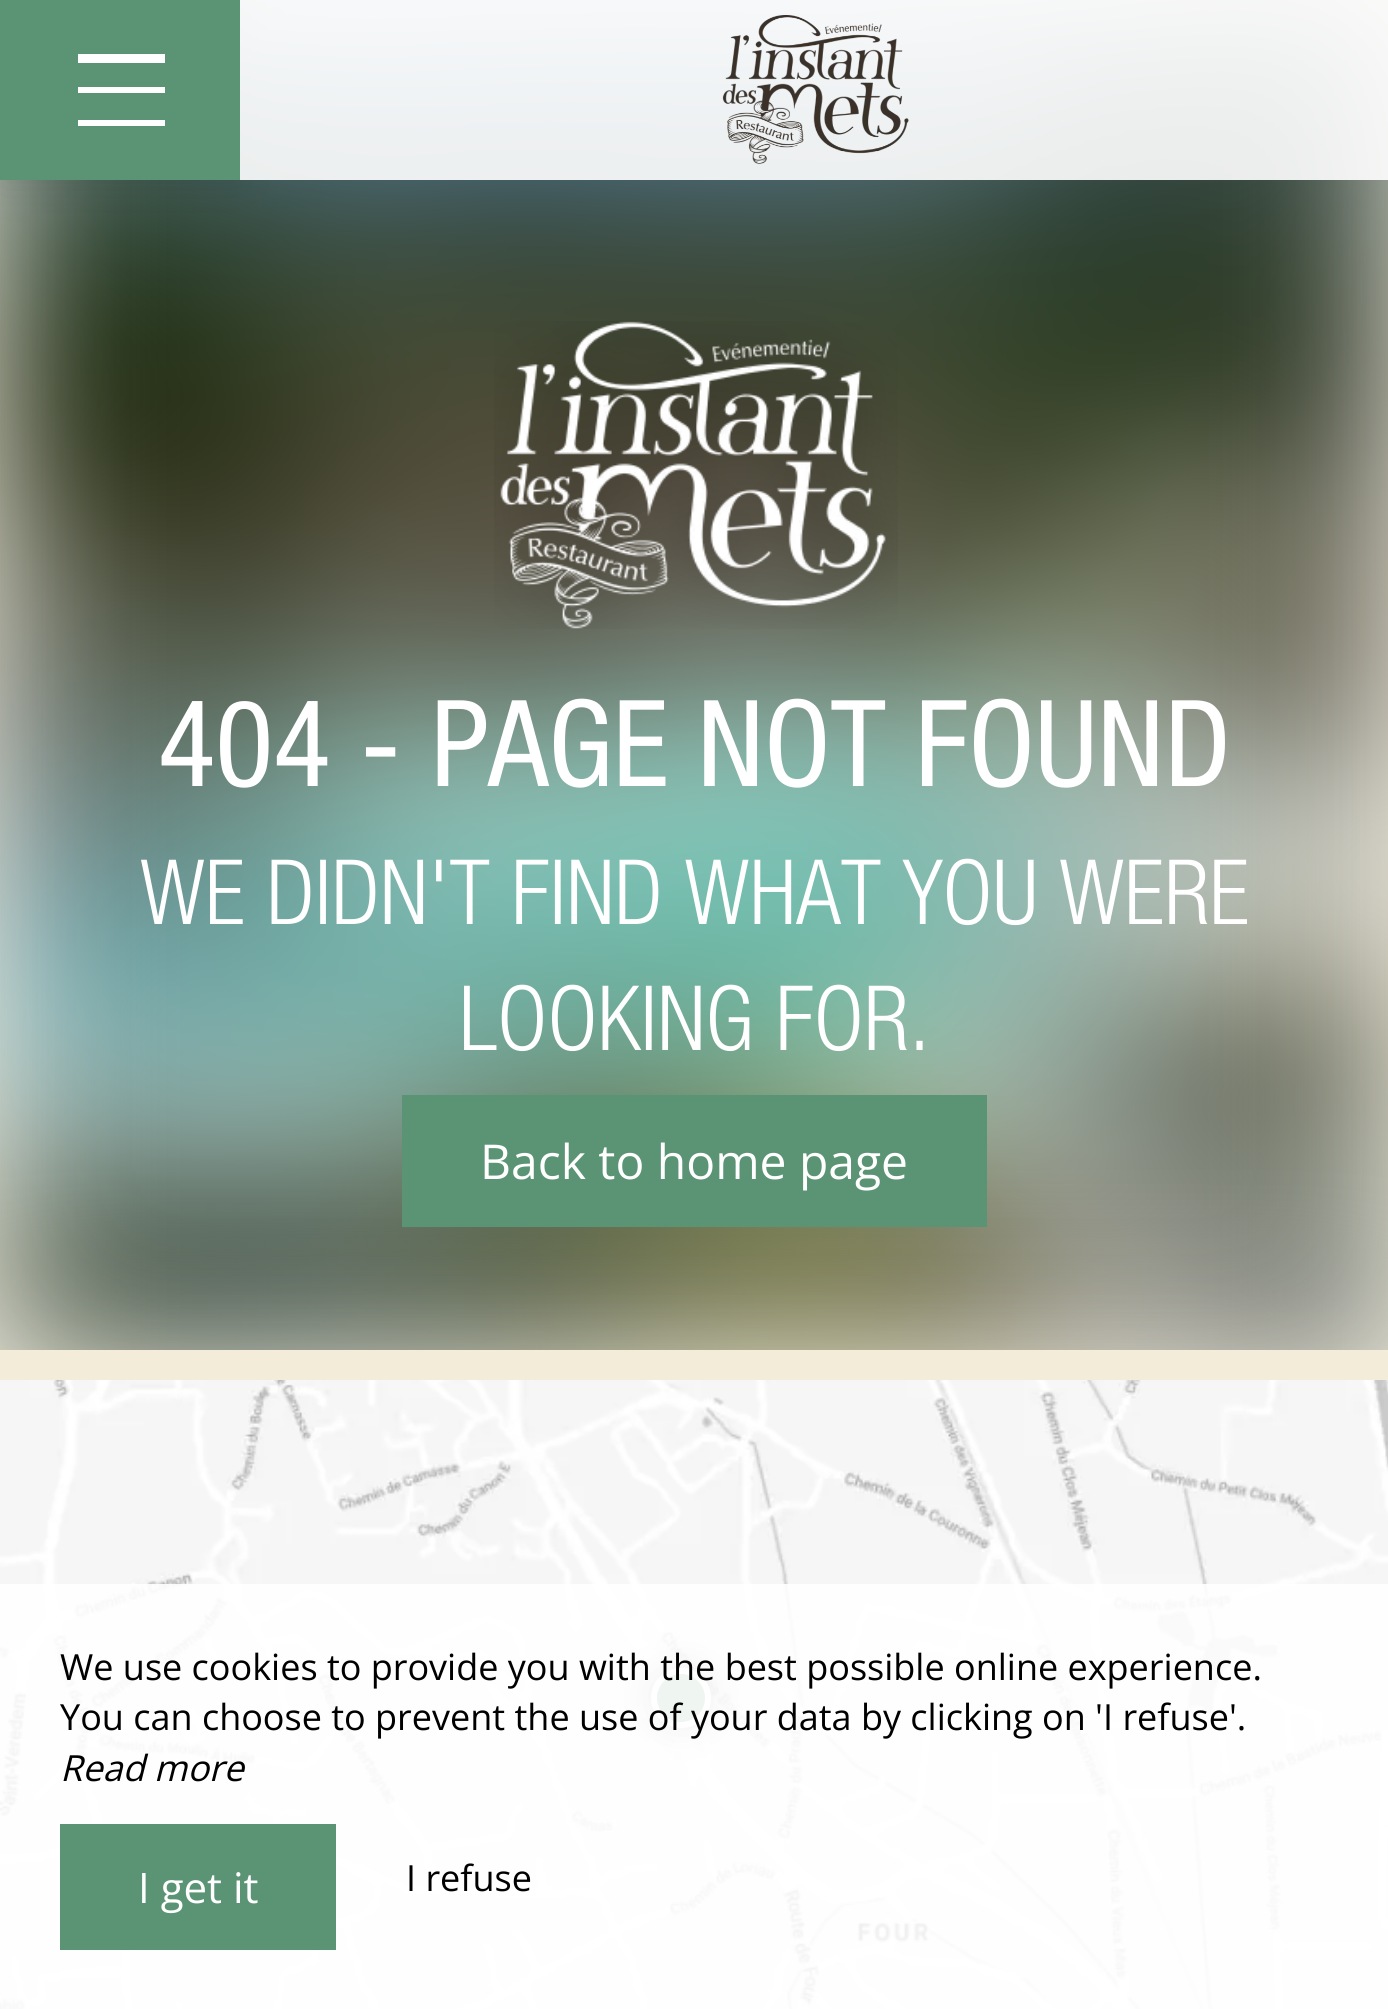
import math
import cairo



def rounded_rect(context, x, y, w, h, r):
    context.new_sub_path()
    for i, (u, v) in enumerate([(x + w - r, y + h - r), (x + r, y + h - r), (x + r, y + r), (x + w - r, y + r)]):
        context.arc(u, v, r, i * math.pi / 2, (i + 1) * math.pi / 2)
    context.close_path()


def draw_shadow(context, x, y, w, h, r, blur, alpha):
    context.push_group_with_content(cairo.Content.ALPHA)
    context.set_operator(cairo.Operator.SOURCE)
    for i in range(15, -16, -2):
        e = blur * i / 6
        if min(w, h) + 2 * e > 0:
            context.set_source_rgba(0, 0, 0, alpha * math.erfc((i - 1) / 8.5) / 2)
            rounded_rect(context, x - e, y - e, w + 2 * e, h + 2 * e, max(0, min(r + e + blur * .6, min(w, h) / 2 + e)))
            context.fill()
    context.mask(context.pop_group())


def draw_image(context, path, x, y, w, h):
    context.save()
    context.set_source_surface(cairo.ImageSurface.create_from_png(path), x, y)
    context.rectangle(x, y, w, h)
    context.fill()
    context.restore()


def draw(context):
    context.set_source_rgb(243 / 255, 236 / 255, 216 / 255)
    context.paint()
    context.save()
    context.rectangle(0, 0, 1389, 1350)
    context.clip()
    context.set_source_rgb(238 / 255, 238 / 255, 238 / 255)
    draw_shadow(context, 0, 0, 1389, 1350, 0, 75, 1)
    context.restore()
    draw_image(context, "images/2.png", 0, 0, 1388, 1350)
    context.set_source_rgb(0, 0, 0)
    draw_shadow(context, 0, 0, 240, 180, 0, 22.5, 0.1)
    context.set_source_rgb(91 / 255, 148 / 255, 116 / 255)
    context.rectangle(0, 0, 240, 180)
    context.fill()
    context.set_source_rgb(1, 1, 1)
    context.rectangle(78, 54, 87, 9)
    context.fill()
    context.rectangle(78, 87, 87, 6)
    context.fill()
    context.rectangle(78, 120, 87, 6)
    context.fill()
    context.set_source_rgba(1, 1, 1, 0.9)
    context.rectangle(240, 0, 1148, 180)
    context.fill()
    draw_image(context, "images/1.png", 722, 15, 187, 150)
    draw_image(context, "images/3.png", 494, 321, 404, 308)
    context.set_source_rgb(91 / 255, 148 / 255, 116 / 255)
    context.rectangle(402, 1095, 585, 132)
    context.fill()
    draw_image(context, "images/4.png", 0, 1380, 1388, 629)
    context.set_source_rgb(0, 0, 0)
    draw_shadow(context, 651, 1668, 60, 60, 30, 18, 0.5)
    context.set_source_rgb(91 / 255, 148 / 255, 116 / 255)
    context.arc(681, 1698, 27, 0, 2 * math.pi)
    context.fill_preserve()
    context.set_source_rgb(1, 1, 1)
    context.set_line_width(6)
    context.stroke()
    context.set_source_rgba(1, 1, 1, 0.9)
    context.rectangle(0, 1584, 1388, 425)
    context.fill()
    context.set_source_rgb(91 / 255, 148 / 255, 116 / 255)
    context.rectangle(60, 1824, 276, 126)
    context.fill()
    context.select_font_face("Helvetica Neue")
    context.set_font_size(120)
    context.set_source_rgb(1, 1, 1)
    context.move_to(158, 786)
    context.show_text("404 - PAGE NOT FOUND")
    context.select_font_face("Helvetica Neue Light")
    context.set_font_size(90)
    context.move_to(140, 924)
    context.show_text("WE DIDN'T FIND WHAT YOU WERE")
    context.move_to(459, 1050)
    context.show_text("LOOKING FOR.")
    context.select_font_face("Open Sans")
    context.set_font_size(48)
    context.move_to(480, 1179)
    context.show_text("Back to home page")
    context.set_font_size(36)
    context.set_source_rgb(0, 0, 0)
    context.move_to(60, 1680)
    context.show_text("We use cookies to provide you with the best possible online experience.")
    context.move_to(60, 1730)
    context.show_text("You can choose to prevent the use of your data by clicking on 'I refuse'.")
    context.select_font_face("Open Sans", cairo.FontSlant.ITALIC)
    context.move_to(60, 1781)
    context.show_text("Read more")
    context.select_font_face("Open Sans")
    context.set_font_size(42)
    context.set_source_rgb(1, 1, 1)
    context.move_to(138, 1903)
    context.show_text("I get it")
    context.set_font_size(36)
    context.set_source_rgb(0, 0, 0)
    context.move_to(406, 1891)
    context.show_text("I refuse")


surface = cairo.ImageSurface(cairo.Format.RGB24, 1388, 2009)
context = cairo.Context(surface)
options = cairo.FontOptions()
options.set_hint_metrics(cairo.HintMetrics.OFF)
options.set_hint_style(cairo.HintStyle.NONE)
context.set_font_options(options)
context.set_miter_limit(4)
draw(context)
surface.write_to_png("out.png")
